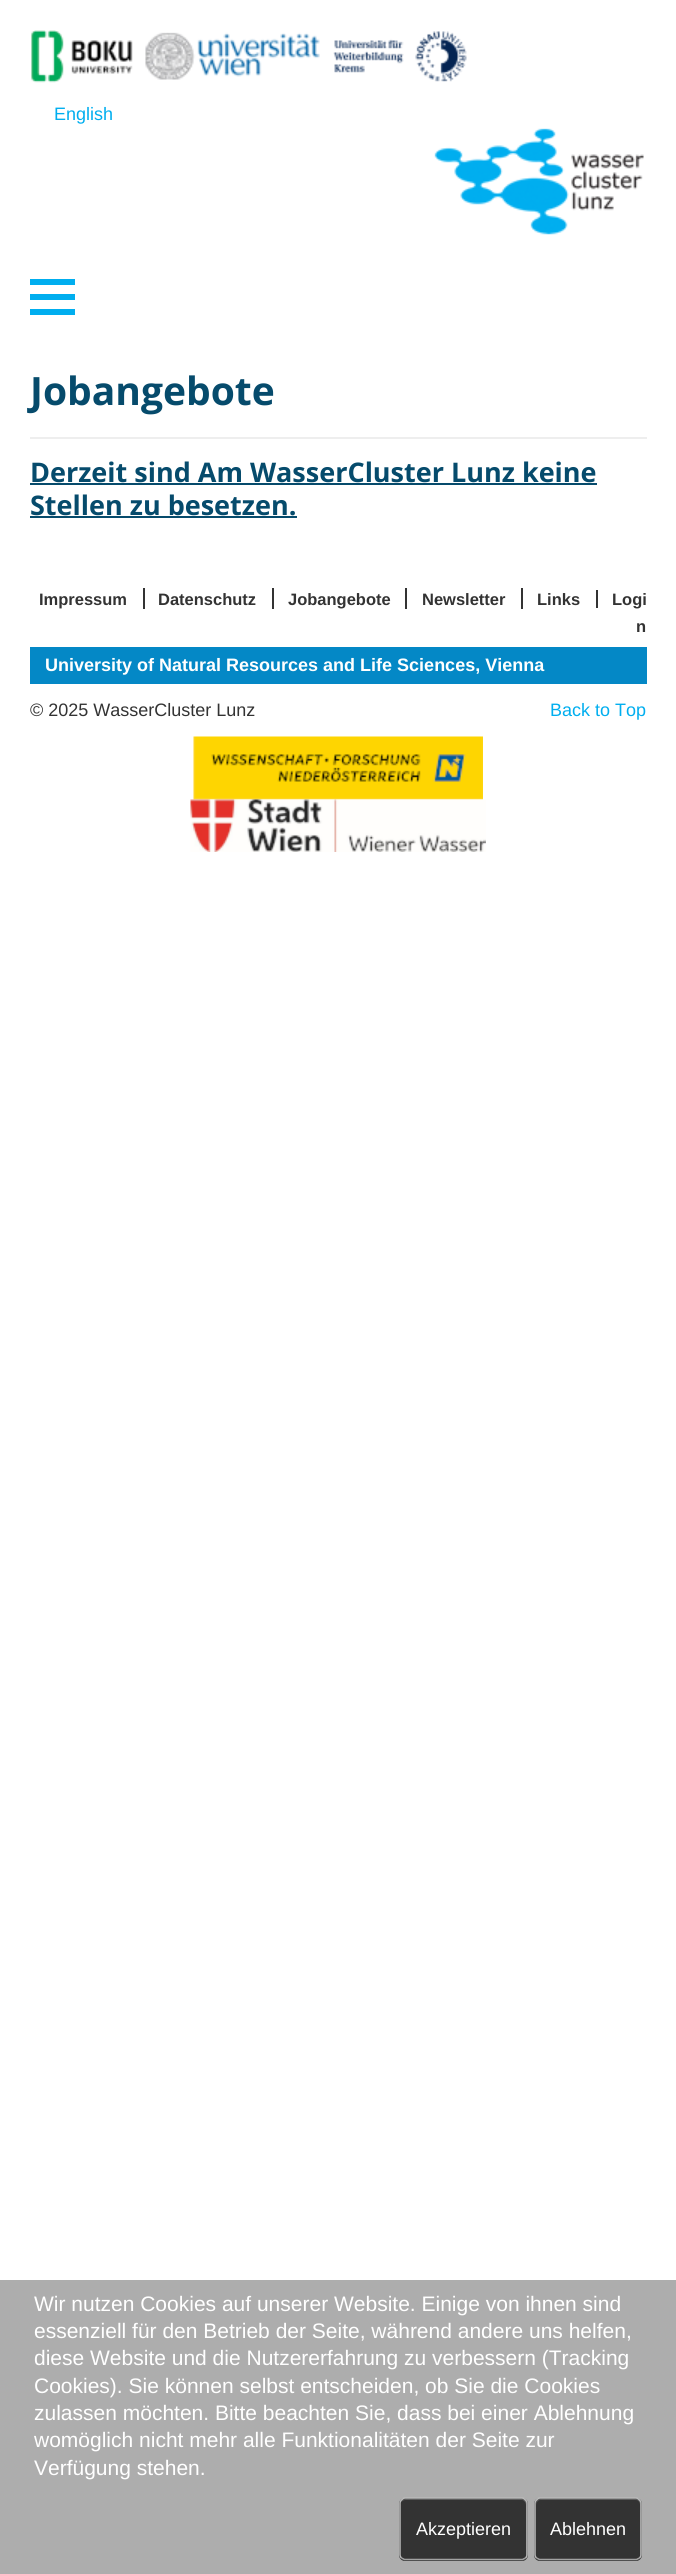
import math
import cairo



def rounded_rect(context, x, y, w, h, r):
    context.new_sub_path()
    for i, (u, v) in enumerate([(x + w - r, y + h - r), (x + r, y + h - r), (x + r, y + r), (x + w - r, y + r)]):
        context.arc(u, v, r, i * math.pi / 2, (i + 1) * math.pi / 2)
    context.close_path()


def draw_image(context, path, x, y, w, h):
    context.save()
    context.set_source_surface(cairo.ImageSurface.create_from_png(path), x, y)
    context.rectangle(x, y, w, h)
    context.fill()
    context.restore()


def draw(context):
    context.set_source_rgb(1, 1, 1)
    context.paint()
    draw_image(context, "images/1.png", 31, 30, 102, 53)
    draw_image(context, "images/2.png", 145, 32, 175, 48)
    draw_image(context, "images/3.png", 333, 31, 134, 51)
    draw_image(context, "images/4.png", 434, 128, 210, 107)
    context.set_source_rgb(0, 174 / 255, 239 / 255)
    context.rectangle(30, 279, 45, 6)
    context.fill()
    context.rectangle(30, 294, 45, 6)
    context.fill()
    context.rectangle(30, 309, 45, 6)
    context.fill()
    context.set_source_rgb(238 / 255, 238 / 255, 238 / 255)
    context.rectangle(30, 437, 617, 2)
    context.fill()
    context.set_source_rgb(6 / 255, 75 / 255, 108 / 255)
    context.rectangle(30, 483, 567, 2)
    context.fill()
    context.rectangle(30, 516, 267, 2)
    context.fill()
    context.set_source_rgb(51 / 255, 51 / 255, 51 / 255)
    context.rectangle(143, 588, 2, 21)
    context.fill()
    context.rectangle(272, 588, 2, 21)
    context.fill()
    context.rectangle(405, 588, 2, 21)
    context.fill()
    context.rectangle(521, 588, 2, 21)
    context.fill()
    context.rectangle(596, 590, 2, 18)
    context.fill()
    context.set_source_rgb(4 / 255, 136 / 255, 198 / 255)
    context.rectangle(30, 647, 617, 37)
    context.fill()
    draw_image(context, "images/5.png", 193, 736, 290, 64)
    draw_image(context, "images/6.png", 190, 799, 296, 53)
    context.set_source_rgb(173 / 255, 173 / 255, 173 / 255)
    context.rectangle(0, 2280, 676, 294)
    context.fill()
    context.set_source_rgb(51 / 255, 51 / 255, 51 / 255)
    rounded_rect(context, 399, 2498, 129, 63, 6)
    context.fill()
    context.set_source_rgb(92 / 255, 92 / 255, 92 / 255)
    context.new_path()
    context.move_to(405, 2500)
    context.line_to(522, 2500)
    context.curve_to(524, 2500, 526, 2503, 526, 2505)
    context.line_to(526, 2557)
    context.curve_to(527, 2556, 527, 2555, 527, 2554)
    context.line_to(527, 2504)
    context.curve_to(527, 2501, 525, 2499, 522, 2499)
    context.line_to(406, 2499)
    context.curve_to(404, 2499, 402, 2500, 401, 2502)
    context.curve_to(402, 2501, 404, 2500, 405, 2500)
    context.close_path()
    context.fill()
    context.new_path()
    context.move_to(525.5, 2558)
    context.line_to(522.5, 2559.5)
    context.line_to(404.5, 2559.5)
    context.line_to(401.5, 2558)
    context.set_source_rgb(162 / 255, 162 / 255, 162 / 255)
    context.set_line_width(1.5)
    context.stroke()
    context.new_path()
    context.move_to(401.5, 2558)
    context.curve_to(400.5, 2557, 400, 2556, 400, 2554.5)
    context.line_to(400, 2503.5)
    context.curve_to(400, 2502, 400.5, 2501, 401.5, 2500)
    context.curve_to(402.5, 2499, 403.5, 2498, 405, 2498)
    context.line_to(522, 2498)
    context.curve_to(523.5, 2498, 524.5, 2499, 525.5, 2500)
    context.curve_to(526.5, 2501, 527, 2502, 527, 2503.5)
    context.line_to(527, 2554.5)
    context.curve_to(527, 2556, 526.5, 2557, 525.5, 2558)
    context.set_source_rgb(187 / 255, 187 / 255, 187 / 255)
    context.stroke()
    context.set_source_rgb(51 / 255, 51 / 255, 51 / 255)
    rounded_rect(context, 534, 2498, 108, 63, 6)
    context.fill()
    context.set_source_rgb(92 / 255, 92 / 255, 92 / 255)
    context.new_path()
    context.move_to(540, 2500)
    context.line_to(636, 2500)
    context.curve_to(642, 2500, 640, 2512, 640, 2514)
    context.line_to(640, 2557)
    context.curve_to(641, 2556, 641, 2555, 641, 2554)
    context.line_to(641, 2504)
    context.curve_to(641, 2501, 639, 2499, 636, 2499)
    context.line_to(541, 2499)
    context.curve_to(538, 2499, 536, 2501, 536, 2504)
    context.line_to(536, 2505)
    context.curve_to(536, 2503, 538, 2500, 540, 2500)
    context.close_path()
    context.fill()
    context.new_path()
    context.move_to(639.5, 2558)
    context.line_to(636.5, 2559.5)
    context.line_to(539.5, 2559.5)
    context.line_to(536.5, 2558)
    context.set_source_rgb(162 / 255, 162 / 255, 162 / 255)
    context.stroke()
    context.new_path()
    context.move_to(536.5, 2558)
    context.curve_to(535.5, 2557, 535, 2556, 535, 2554.5)
    context.line_to(535, 2503.5)
    context.curve_to(535, 2502, 535.5, 2501, 536.5, 2500)
    context.curve_to(537.5, 2499, 538.5, 2498, 540, 2498)
    context.line_to(636, 2498)
    context.curve_to(637.5, 2498, 638.5, 2499, 639.5, 2500)
    context.curve_to(640.5, 2501, 641, 2502, 641, 2503.5)
    context.line_to(641, 2554.5)
    context.curve_to(641, 2556, 640.5, 2557, 639.5, 2558)
    context.set_source_rgb(187 / 255, 187 / 255, 187 / 255)
    context.stroke()
    context.select_font_face("Liberation Sans")
    context.set_font_size(18)
    context.set_source_rgb(0, 174 / 255, 239 / 255)
    context.move_to(54, 120)
    context.show_text("English")
    context.select_font_face("Open Sans", cairo.FontSlant.NORMAL, cairo.FontWeight.BOLD)
    context.set_font_size(39)
    context.set_source_rgb(6 / 255, 75 / 255, 108 / 255)
    context.move_to(30, 405)
    context.show_text("Jobangebote")
    context.set_font_size(27)
    context.move_to(30, 482)
    context.show_text("Derzeit sind Am WasserCluster Lunz keine")
    context.move_to(30, 515)
    context.show_text("Stellen zu besetzen.")
    context.select_font_face("Liberation Sans", cairo.FontSlant.NORMAL, cairo.FontWeight.BOLD)
    context.set_font_size(16.5)
    context.set_source_rgb(51 / 255, 51 / 255, 51 / 255)
    context.move_to(39, 605)
    context.show_text("Impressum")
    context.move_to(158, 605)
    context.show_text("Datenschutz")
    context.move_to(288, 605)
    context.show_text("Jobangebote")
    context.move_to(422, 605)
    context.show_text("Newsletter")
    context.move_to(537, 605)
    context.show_text("Links")
    context.move_to(612, 605)
    context.show_text("Logi")
    context.move_to(636, 632)
    context.show_text("n")
    context.set_font_size(18)
    context.set_source_rgb(1, 1, 1)
    context.move_to(45, 671)
    context.show_text("University of Natural Resources and Life Sciences, Vienna")
    context.select_font_face("Liberation Sans")
    context.set_source_rgb(51 / 255, 51 / 255, 51 / 255)
    context.move_to(30, 716)
    context.show_text("© 2025 WasserCluster Lunz")
    context.set_source_rgb(0, 174 / 255, 239 / 255)
    context.move_to(550, 716)
    context.show_text("Back to Top")
    context.set_font_size(21)
    context.set_source_rgb(1, 1, 1)
    context.move_to(34, 2311)
    context.show_text("Wir nutzen Cookies auf unserer Website. Einige von ihnen sind")
    context.move_to(34, 2338)
    context.show_text("essenziell für den Betrieb der Seite, während andere uns helfen,")
    context.move_to(34, 2365)
    context.show_text("diese Website und die Nutzererfahrung zu verbessern (Tracking")
    context.move_to(34, 2393)
    context.show_text("Cookies). Sie können selbst entscheiden, ob Sie die Cookies")
    context.move_to(34, 2420)
    context.show_text("zulassen möchten. Bitte beachten Sie, dass bei einer Ablehnung")
    context.move_to(34, 2447)
    context.show_text("womöglich nicht mehr alle Funktionalitäten der Seite zur")
    context.move_to(34, 2475)
    context.show_text("Verfügung stehen.")
    context.set_font_size(18)
    context.move_to(416, 2535)
    context.show_text("Akzeptieren")
    context.move_to(550, 2535)
    context.show_text("Ablehnen")


surface = cairo.ImageSurface(cairo.Format.RGB24, 676, 2574)
context = cairo.Context(surface)
options = cairo.FontOptions()
options.set_hint_metrics(cairo.HintMetrics.OFF)
options.set_hint_style(cairo.HintStyle.NONE)
context.set_font_options(options)
context.set_miter_limit(4)
draw(context)
surface.write_to_png("out.png")
